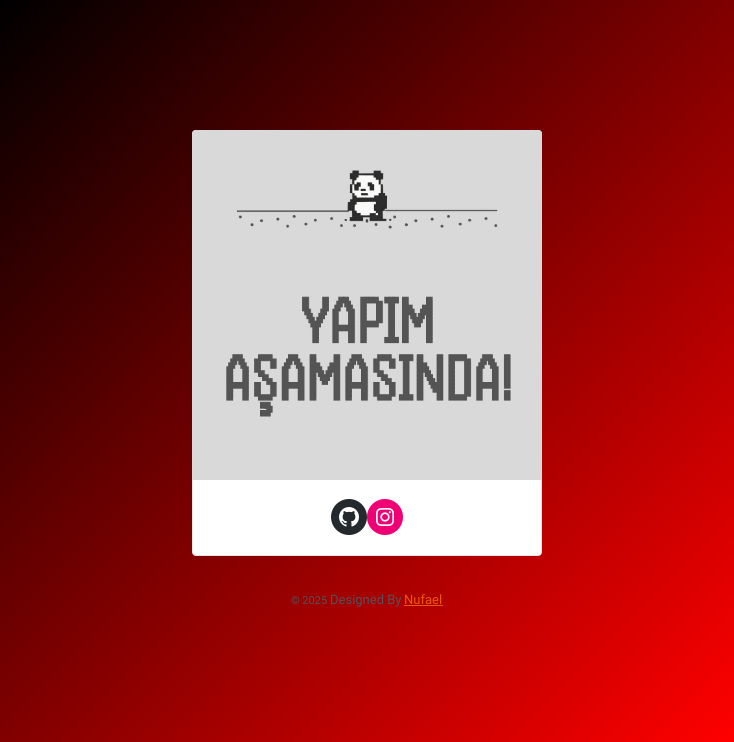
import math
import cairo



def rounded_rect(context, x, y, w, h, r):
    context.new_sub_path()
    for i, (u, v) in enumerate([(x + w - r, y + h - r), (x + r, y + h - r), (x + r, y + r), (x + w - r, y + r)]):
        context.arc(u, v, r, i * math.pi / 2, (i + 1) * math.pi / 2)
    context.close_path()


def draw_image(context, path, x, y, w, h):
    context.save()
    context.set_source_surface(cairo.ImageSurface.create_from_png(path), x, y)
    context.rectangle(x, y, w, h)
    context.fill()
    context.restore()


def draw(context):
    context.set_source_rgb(1, 1, 1)
    context.paint()
    gradient = cairo.LinearGradient(-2, 2, 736, 740)
    gradient.add_color_stop_rgba(0, 0, 0, 0, 1)
    gradient.add_color_stop_rgba(1, 1, 0, 0, 1)
    context.set_source(gradient)
    context.rectangle(0, 0, 734, 742)
    context.fill()
    context.set_source_rgb(1, 1, 1)
    rounded_rect(context, 192.5, 130.5, 349, 425, 3.5)
    context.fill_preserve()
    context.set_source_rgb(228 / 255, 228 / 255, 231 / 255)
    context.set_line_width(1)
    context.stroke()
    draw_image(context, "images/1.png", 192, 130, 350, 350)
    context.set_source_rgb(36 / 255, 41 / 255, 45 / 255)
    context.arc(349, 517, 18, 0, 2 * math.pi)
    context.fill()
    draw_image(context, "images/2.png", 339, 507, 20, 20)
    context.set_source_rgb(240 / 255, 0, 117 / 255)
    context.arc(385, 517, 18, 0, 2 * math.pi)
    context.fill()
    draw_image(context, "images/3.png", 376, 508, 18, 18)
    context.set_source_rgb(234 / 255, 88 / 255, 12 / 255)
    context.rectangle(404, 605, 39, 1)
    context.fill()
    context.select_font_face("Roboto")
    context.set_font_size(11)
    context.set_source_rgb(82 / 255, 82 / 255, 91 / 255)
    context.move_to(291, 604)
    context.show_text("© 2025")
    context.set_font_size(13)
    context.move_to(330, 604)
    context.show_text("Designed By")
    context.set_source_rgb(234 / 255, 88 / 255, 12 / 255)
    context.move_to(404, 604)
    context.show_text("Nufael")


surface = cairo.ImageSurface(cairo.Format.RGB24, 734, 742)
context = cairo.Context(surface)
options = cairo.FontOptions()
options.set_hint_metrics(cairo.HintMetrics.OFF)
options.set_hint_style(cairo.HintStyle.NONE)
context.set_font_options(options)
context.set_miter_limit(4)
draw(context)
surface.write_to_png("out.png")
